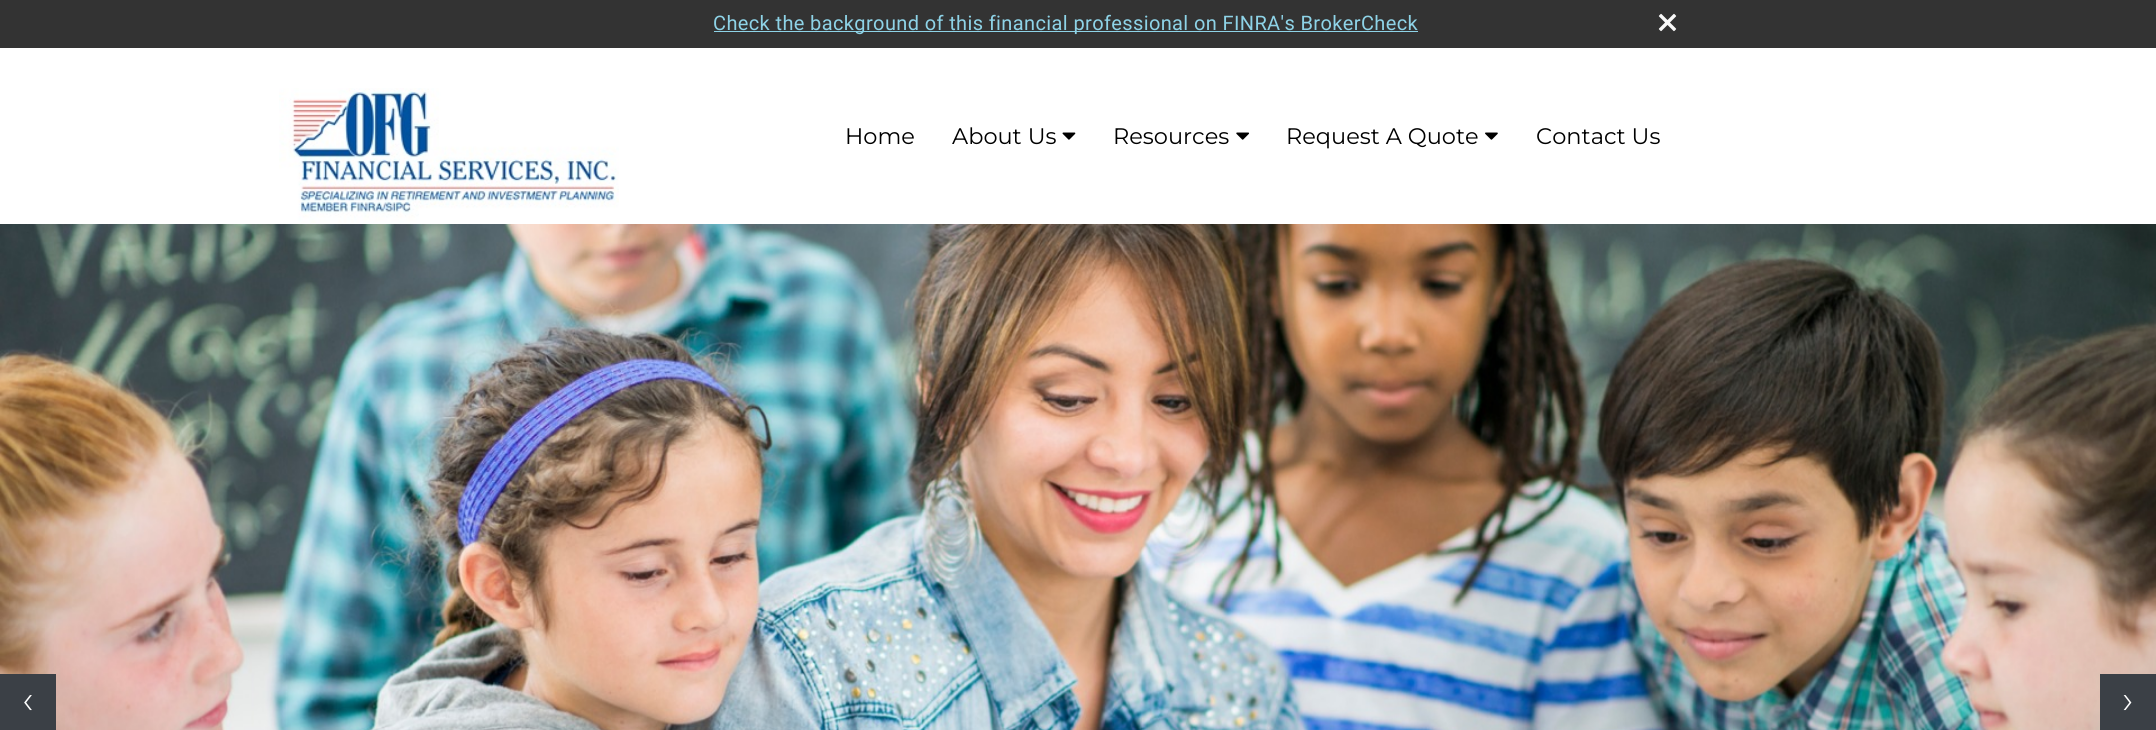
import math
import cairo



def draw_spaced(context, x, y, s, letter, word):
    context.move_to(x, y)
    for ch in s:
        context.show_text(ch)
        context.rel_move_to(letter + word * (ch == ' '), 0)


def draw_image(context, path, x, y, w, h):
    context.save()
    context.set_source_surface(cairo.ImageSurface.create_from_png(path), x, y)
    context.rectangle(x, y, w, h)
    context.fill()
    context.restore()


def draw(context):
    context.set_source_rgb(1, 1, 1)
    context.paint()
    context.set_source_rgb(51 / 255, 51 / 255, 51 / 255)
    context.rectangle(0, 0, 2156, 48)
    context.fill()
    context.set_source_rgb(142 / 255, 211 / 255, 231 / 255)
    context.rectangle(714, 31, 704, 1)
    context.fill()
    draw_image(context, "images/1.png", 1658, 13, 19, 19)
    draw_image(context, "images/2.png", 279, 88, 340, 135)
    draw_image(context, "images/3.png", 1062, 132, 14, 8)
    draw_image(context, "images/4.png", 1236, 132, 14, 8)
    draw_image(context, "images/5.png", 1485, 132, 13, 8)
    draw_image(context, "images/6.png", 0, 224, 2156, 506)
    context.set_source_rgb(59 / 255, 64 / 255, 70 / 255)
    context.rectangle(0, 674, 56, 56)
    context.fill()
    context.rectangle(2100, 674, 56, 56)
    context.fill()
    context.select_font_face("Roboto")
    context.set_font_size(20)
    context.set_source_rgb(142 / 255, 211 / 255, 231 / 255)
    draw_spaced(context, 713, 30, "Check the background of this financial professional on FINRA's BrokerCheck", 0.38, 0)
    context.select_font_face("Montserrat")
    context.set_font_size(22.5)
    context.set_source_rgb(0, 0, 0)
    context.move_to(845, 144)
    context.show_text("Home")
    context.move_to(952, 144)
    context.show_text("About Us")
    context.move_to(1113, 144)
    context.show_text("Resources")
    context.move_to(1286, 144)
    context.show_text("Request A Quote")
    context.move_to(1536, 144)
    context.show_text("Contact Us")
    context.select_font_face("Montserrat Light")
    context.set_font_size(40)
    context.set_source_rgb(1, 1, 1)
    draw_spaced(context, 22, 713, "‹", 1, 0)
    draw_spaced(context, 2122, 713, "›", 1, 0)


surface = cairo.ImageSurface(cairo.Format.RGB24, 2156, 730)
context = cairo.Context(surface)
options = cairo.FontOptions()
options.set_hint_metrics(cairo.HintMetrics.OFF)
options.set_hint_style(cairo.HintStyle.NONE)
context.set_font_options(options)
context.set_miter_limit(4)
draw(context)
surface.write_to_png("out.png")
